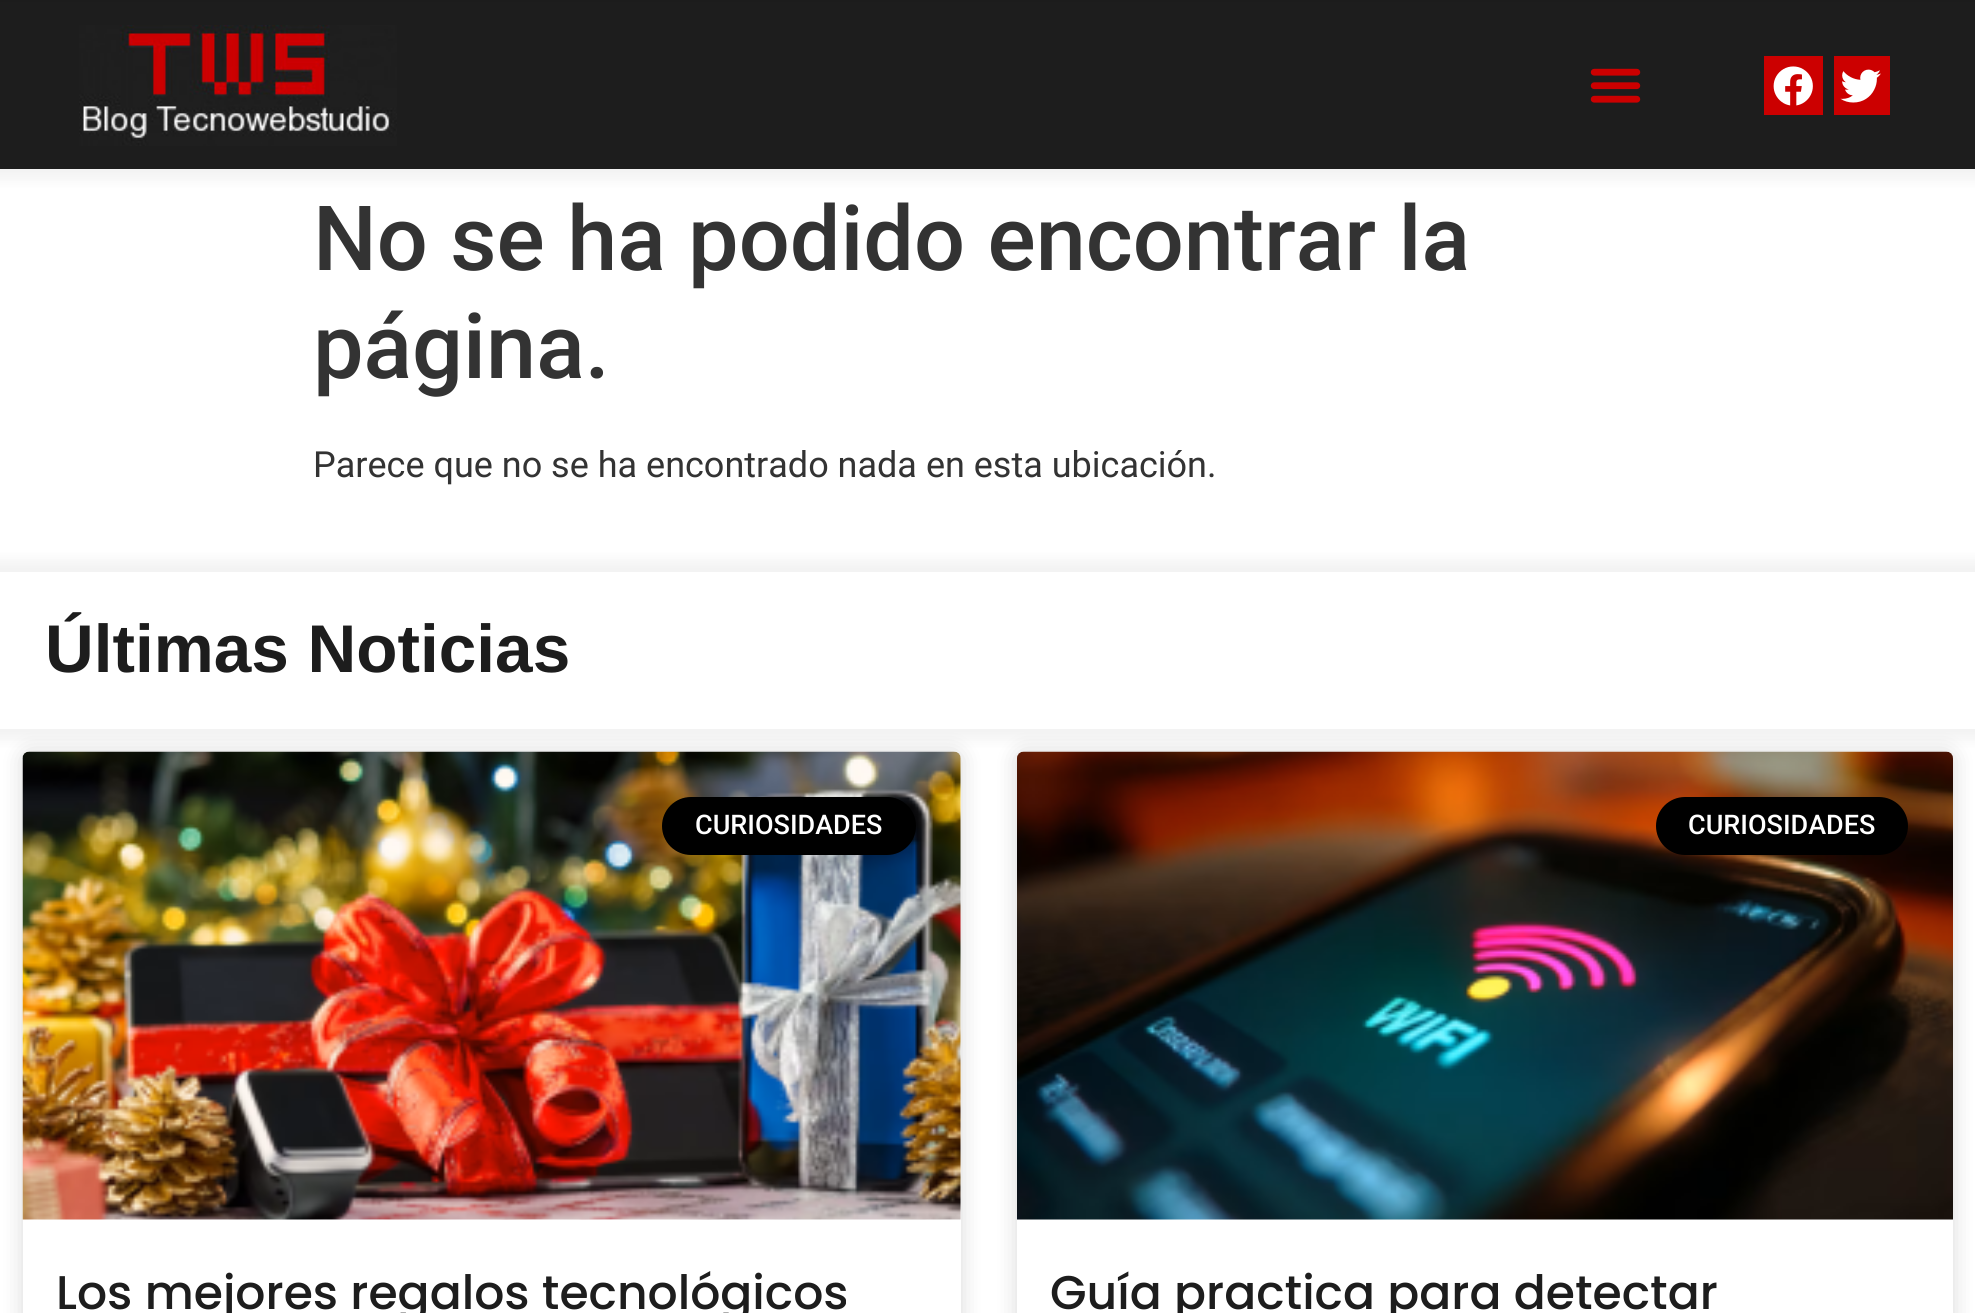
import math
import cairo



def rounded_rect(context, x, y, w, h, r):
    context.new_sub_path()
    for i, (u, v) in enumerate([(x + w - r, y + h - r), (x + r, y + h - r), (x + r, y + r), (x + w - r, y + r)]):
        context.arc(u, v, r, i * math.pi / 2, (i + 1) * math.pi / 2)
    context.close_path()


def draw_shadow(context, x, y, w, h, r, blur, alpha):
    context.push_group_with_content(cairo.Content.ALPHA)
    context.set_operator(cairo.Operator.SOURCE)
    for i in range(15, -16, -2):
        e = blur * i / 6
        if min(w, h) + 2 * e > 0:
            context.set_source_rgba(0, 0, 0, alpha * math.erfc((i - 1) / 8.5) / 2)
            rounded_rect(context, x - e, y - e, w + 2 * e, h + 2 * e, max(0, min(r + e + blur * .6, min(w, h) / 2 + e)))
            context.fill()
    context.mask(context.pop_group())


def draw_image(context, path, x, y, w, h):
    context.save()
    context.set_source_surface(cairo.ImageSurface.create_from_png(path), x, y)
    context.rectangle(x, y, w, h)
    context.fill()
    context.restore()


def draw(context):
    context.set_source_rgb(1, 1, 1)
    context.paint()
    context.set_source_rgb(29 / 255, 29 / 255, 29 / 255)
    context.rectangle(0, 0, 1975, 2)
    context.fill()
    context.set_source_rgb(0, 0, 0)
    draw_shadow(context, -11, -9, 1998, 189, 0, 5.5, 0.05)
    context.set_source_rgb(29 / 255, 29 / 255, 29 / 255)
    context.rectangle(0, 2, 1975, 167)
    context.fill()
    draw_image(context, "images/1.png", 79, 25, 318, 121)
    draw_image(context, "images/2.png", 1590, 68, 51, 35)
    context.set_source_rgb(204 / 255, 0, 0)
    context.rectangle(1764, 56, 59, 59)
    context.fill()
    draw_image(context, "images/3.png", 1773, 66, 40, 40)
    context.rectangle(1834, 56, 56, 59)
    context.fill()
    draw_image(context, "images/4.png", 1840, 69, 41, 34)
    context.set_source_rgb(0, 0, 0)
    draw_shadow(context, 23, 752, 938, 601, 7, 11, 0.15)
    context.set_source_rgb(1, 1, 1)
    rounded_rect(context, 23, 752, 938, 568, 7)
    context.fill()
    draw_image(context, "images/5.png", 22, 751, 939, 469)
    context.set_source_rgb(0, 0, 0)
    draw_shadow(context, 1017, 752, 936, 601, 7, 11, 0.15)
    context.set_source_rgb(1, 1, 1)
    rounded_rect(context, 1017, 752, 936, 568, 7)
    context.fill()
    draw_image(context, "images/6.png", 1017, 751, 936, 469)
    context.save()
    context.set_fill_rule(cairo.FillRule.EVEN_ODD)
    context.new_path()
    context.move_to(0, 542)
    context.line_to(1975, 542)
    context.line_to(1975, 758)
    context.line_to(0, 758)
    context.close_path()
    context.move_to(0, 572)
    context.line_to(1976, 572)
    context.line_to(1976, 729)
    context.line_to(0, 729)
    context.close_path()
    context.clip()
    context.set_source_rgb(0, 0, 0)
    draw_shadow(context, -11, 560, 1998, 180, 0, 5.5, 0.05)
    context.restore()
    context.set_source_rgb(0, 0, 0)
    rounded_rect(context, 662, 797, 254, 58, 29)
    context.fill()
    rounded_rect(context, 1656, 797, 252, 58, 29)
    context.fill()
    context.select_font_face("Roboto Medium")
    context.set_font_size(90)
    context.set_source_rgb(51 / 255, 51 / 255, 51 / 255)
    context.move_to(313, 270)
    context.show_text("No se ha podido encontrar la")
    context.move_to(313, 378)
    context.show_text("página.")
    context.select_font_face("Roboto")
    context.set_font_size(36)
    context.move_to(313, 477)
    context.show_text("Parece que no se ha encontrado nada en esta ubicación.")
    context.select_font_face("Liberation Sans", cairo.FontSlant.NORMAL, cairo.FontWeight.BOLD)
    context.set_font_size(67.5)
    context.set_source_rgb(29 / 255, 29 / 255, 29 / 255)
    context.move_to(45, 672)
    context.show_text("Últimas Noticias")
    context.select_font_face("Roboto Medium")
    context.set_font_size(27)
    context.set_source_rgb(1, 1, 1)
    context.move_to(695, 834)
    context.show_text("CURIOSIDADES")
    context.select_font_face("Poppins Medium")
    context.set_font_size(47.25)
    context.set_source_rgb(29 / 255, 29 / 255, 29 / 255)
    context.move_to(56, 1309)
    context.show_text("Los mejores regalos tecnológicos")
    context.select_font_face("Roboto Medium")
    context.set_font_size(27)
    context.set_source_rgb(1, 1, 1)
    context.move_to(1688, 834)
    context.show_text("CURIOSIDADES")
    context.select_font_face("Poppins Medium")
    context.set_font_size(47.25)
    context.set_source_rgb(29 / 255, 29 / 255, 29 / 255)
    context.move_to(1050, 1309)
    context.show_text("Guía practica para detectar")


surface = cairo.ImageSurface(cairo.Format.RGB24, 1975, 1313)
context = cairo.Context(surface)
options = cairo.FontOptions()
options.set_hint_metrics(cairo.HintMetrics.OFF)
options.set_hint_style(cairo.HintStyle.NONE)
context.set_font_options(options)
context.set_miter_limit(4)
draw(context)
surface.write_to_png("out.png")
